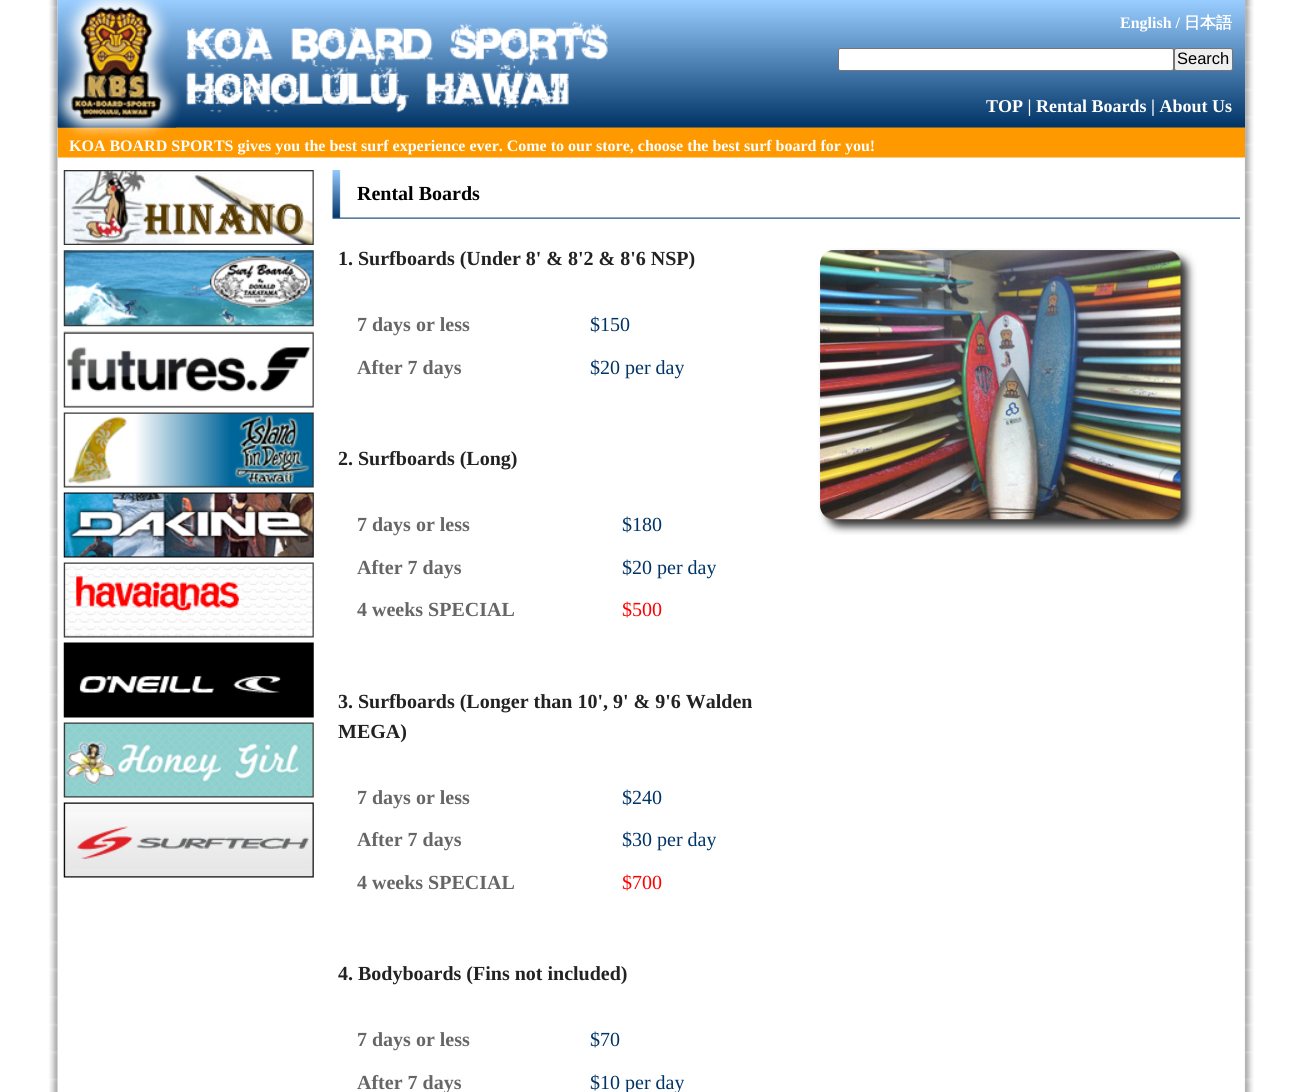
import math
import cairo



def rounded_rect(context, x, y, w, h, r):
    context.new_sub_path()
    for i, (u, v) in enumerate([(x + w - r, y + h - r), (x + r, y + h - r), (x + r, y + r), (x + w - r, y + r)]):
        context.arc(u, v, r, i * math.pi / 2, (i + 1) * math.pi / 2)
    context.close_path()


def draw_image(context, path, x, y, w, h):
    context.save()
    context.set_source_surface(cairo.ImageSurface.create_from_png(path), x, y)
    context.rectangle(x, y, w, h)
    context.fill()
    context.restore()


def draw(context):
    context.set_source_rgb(1, 1, 1)
    context.paint()
    draw_image(context, "images/1.png", 49, 0, 1205, 1092)
    draw_image(context, "images/2.png", 57, 0, 1188, 158)
    draw_image(context, "images/3.png", 57, 0, 120, 128)
    context.set_source_rgb(1, 1, 1)
    rounded_rect(context, 838.5, 48.5, 335, 22, 2)
    context.fill_preserve()
    context.set_source_rgb(118 / 255, 118 / 255, 118 / 255)
    context.set_line_width(1)
    context.stroke()
    context.set_source_rgb(239 / 255, 239 / 255, 239 / 255)
    rounded_rect(context, 1174.5, 48.5, 58, 22, 2)
    context.fill_preserve()
    context.set_source_rgb(118 / 255, 118 / 255, 118 / 255)
    context.stroke()
    draw_image(context, "images/4.png", 63, 170, 251, 75)
    draw_image(context, "images/5.png", 63, 250, 251, 77)
    draw_image(context, "images/6.png", 63, 331, 251, 77)
    draw_image(context, "images/7.png", 63, 412, 251, 76)
    draw_image(context, "images/8.png", 63, 492, 251, 66)
    draw_image(context, "images/9.png", 63, 562, 251, 76)
    draw_image(context, "images/10.png", 63, 642, 251, 76)
    draw_image(context, "images/11.png", 63, 722, 251, 76)
    draw_image(context, "images/12.png", 63, 802, 251, 76)
    draw_image(context, "images/13.png", 332, 170, 908, 49)
    draw_image(context, "images/14.png", 818, 248, 379, 287)
    context.select_font_face("Liberation Serif", cairo.FontSlant.NORMAL, cairo.FontWeight.BOLD)
    context.set_font_size(16)
    context.set_source_rgb(1, 1, 1)
    context.move_to(1120, 28)
    context.show_text("English /")
    context.select_font_face("WenQuanYi Zen Hei", cairo.FontSlant.NORMAL, cairo.FontWeight.BOLD)
    context.move_to(1184, 28)
    context.show_text("日本語")
    context.select_font_face("Liberation Sans")
    context.set_font_size(16.5)
    context.set_source_rgb(0, 0, 0)
    context.move_to(1177, 64)
    context.show_text("Search")
    context.select_font_face("Liberation Serif", cairo.FontSlant.NORMAL, cairo.FontWeight.BOLD)
    context.set_font_size(18)
    context.set_source_rgb(1, 1, 1)
    context.move_to(986, 112)
    context.show_text("TOP | Rental Boards | About Us")
    context.set_font_size(16)
    context.move_to(69, 151)
    context.show_text("KOA BOARD SPORTS gives you the best surf experience ever. Come to our store, choose the best surf board for you!")
    context.set_font_size(20)
    context.set_source_rgb(0, 0, 0)
    context.move_to(357, 200)
    context.show_text("Rental Boards")
    context.set_source_rgb(34 / 255, 34 / 255, 34 / 255)
    context.move_to(338, 265)
    context.show_text("1. Surfboards (Under 8' & 8'2 & 8'6 NSP)")
    context.set_source_rgb(102 / 255, 102 / 255, 102 / 255)
    context.move_to(357, 331)
    context.show_text("7 days or less")
    context.select_font_face("Liberation Serif")
    context.set_source_rgb(0, 51 / 255, 102 / 255)
    context.move_to(590, 331)
    context.show_text("$150")
    context.select_font_face("Liberation Serif", cairo.FontSlant.NORMAL, cairo.FontWeight.BOLD)
    context.set_source_rgb(102 / 255, 102 / 255, 102 / 255)
    context.move_to(357, 374)
    context.show_text("After 7 days")
    context.select_font_face("Liberation Serif")
    context.set_source_rgb(0, 51 / 255, 102 / 255)
    context.move_to(590, 374)
    context.show_text("$20 per day")
    context.select_font_face("Liberation Serif", cairo.FontSlant.NORMAL, cairo.FontWeight.BOLD)
    context.set_source_rgb(34 / 255, 34 / 255, 34 / 255)
    context.move_to(338, 465)
    context.show_text("2. Surfboards (Long)")
    context.set_source_rgb(102 / 255, 102 / 255, 102 / 255)
    context.move_to(357, 531)
    context.show_text("7 days or less")
    context.select_font_face("Liberation Serif")
    context.set_source_rgb(0, 51 / 255, 102 / 255)
    context.move_to(622, 531)
    context.show_text("$180")
    context.select_font_face("Liberation Serif", cairo.FontSlant.NORMAL, cairo.FontWeight.BOLD)
    context.set_source_rgb(102 / 255, 102 / 255, 102 / 255)
    context.move_to(357, 574)
    context.show_text("After 7 days")
    context.select_font_face("Liberation Serif")
    context.set_source_rgb(0, 51 / 255, 102 / 255)
    context.move_to(622, 574)
    context.show_text("$20 per day")
    context.select_font_face("Liberation Serif", cairo.FontSlant.NORMAL, cairo.FontWeight.BOLD)
    context.set_source_rgb(102 / 255, 102 / 255, 102 / 255)
    context.move_to(357, 616)
    context.show_text("4 weeks SPECIAL")
    context.select_font_face("Liberation Serif")
    context.set_source_rgb(1, 0, 0)
    context.move_to(622, 616)
    context.show_text("$500")
    context.select_font_face("Liberation Serif", cairo.FontSlant.NORMAL, cairo.FontWeight.BOLD)
    context.set_source_rgb(34 / 255, 34 / 255, 34 / 255)
    context.move_to(338, 708)
    context.show_text("3. Surfboards (Longer than 10', 9' & 9'6 Walden")
    context.move_to(338, 738)
    context.show_text("MEGA)")
    context.set_source_rgb(102 / 255, 102 / 255, 102 / 255)
    context.move_to(357, 804)
    context.show_text("7 days or less")
    context.select_font_face("Liberation Serif")
    context.set_source_rgb(0, 51 / 255, 102 / 255)
    context.move_to(622, 804)
    context.show_text("$240")
    context.select_font_face("Liberation Serif", cairo.FontSlant.NORMAL, cairo.FontWeight.BOLD)
    context.set_source_rgb(102 / 255, 102 / 255, 102 / 255)
    context.move_to(357, 846)
    context.show_text("After 7 days")
    context.select_font_face("Liberation Serif")
    context.set_source_rgb(0, 51 / 255, 102 / 255)
    context.move_to(622, 846)
    context.show_text("$30 per day")
    context.select_font_face("Liberation Serif", cairo.FontSlant.NORMAL, cairo.FontWeight.BOLD)
    context.set_source_rgb(102 / 255, 102 / 255, 102 / 255)
    context.move_to(357, 889)
    context.show_text("4 weeks SPECIAL")
    context.select_font_face("Liberation Serif")
    context.set_source_rgb(1, 0, 0)
    context.move_to(622, 889)
    context.show_text("$700")
    context.select_font_face("Liberation Serif", cairo.FontSlant.NORMAL, cairo.FontWeight.BOLD)
    context.set_source_rgb(34 / 255, 34 / 255, 34 / 255)
    context.move_to(338, 980)
    context.show_text("4. Bodyboards (Fins not included)")
    context.set_source_rgb(102 / 255, 102 / 255, 102 / 255)
    context.move_to(357, 1046)
    context.show_text("7 days or less")
    context.select_font_face("Liberation Serif")
    context.set_source_rgb(0, 51 / 255, 102 / 255)
    context.move_to(590, 1046)
    context.show_text("$70")
    context.select_font_face("Liberation Serif", cairo.FontSlant.NORMAL, cairo.FontWeight.BOLD)
    context.set_source_rgb(102 / 255, 102 / 255, 102 / 255)
    context.move_to(357, 1089)
    context.show_text("After 7 days")
    context.select_font_face("Liberation Serif")
    context.set_source_rgb(0, 51 / 255, 102 / 255)
    context.move_to(590, 1089)
    context.show_text("$10 per day")


surface = cairo.ImageSurface(cairo.Format.RGB24, 1301, 1092)
context = cairo.Context(surface)
options = cairo.FontOptions()
options.set_hint_metrics(cairo.HintMetrics.OFF)
options.set_hint_style(cairo.HintStyle.NONE)
context.set_font_options(options)
context.set_miter_limit(4)
draw(context)
surface.write_to_png("out.png")
